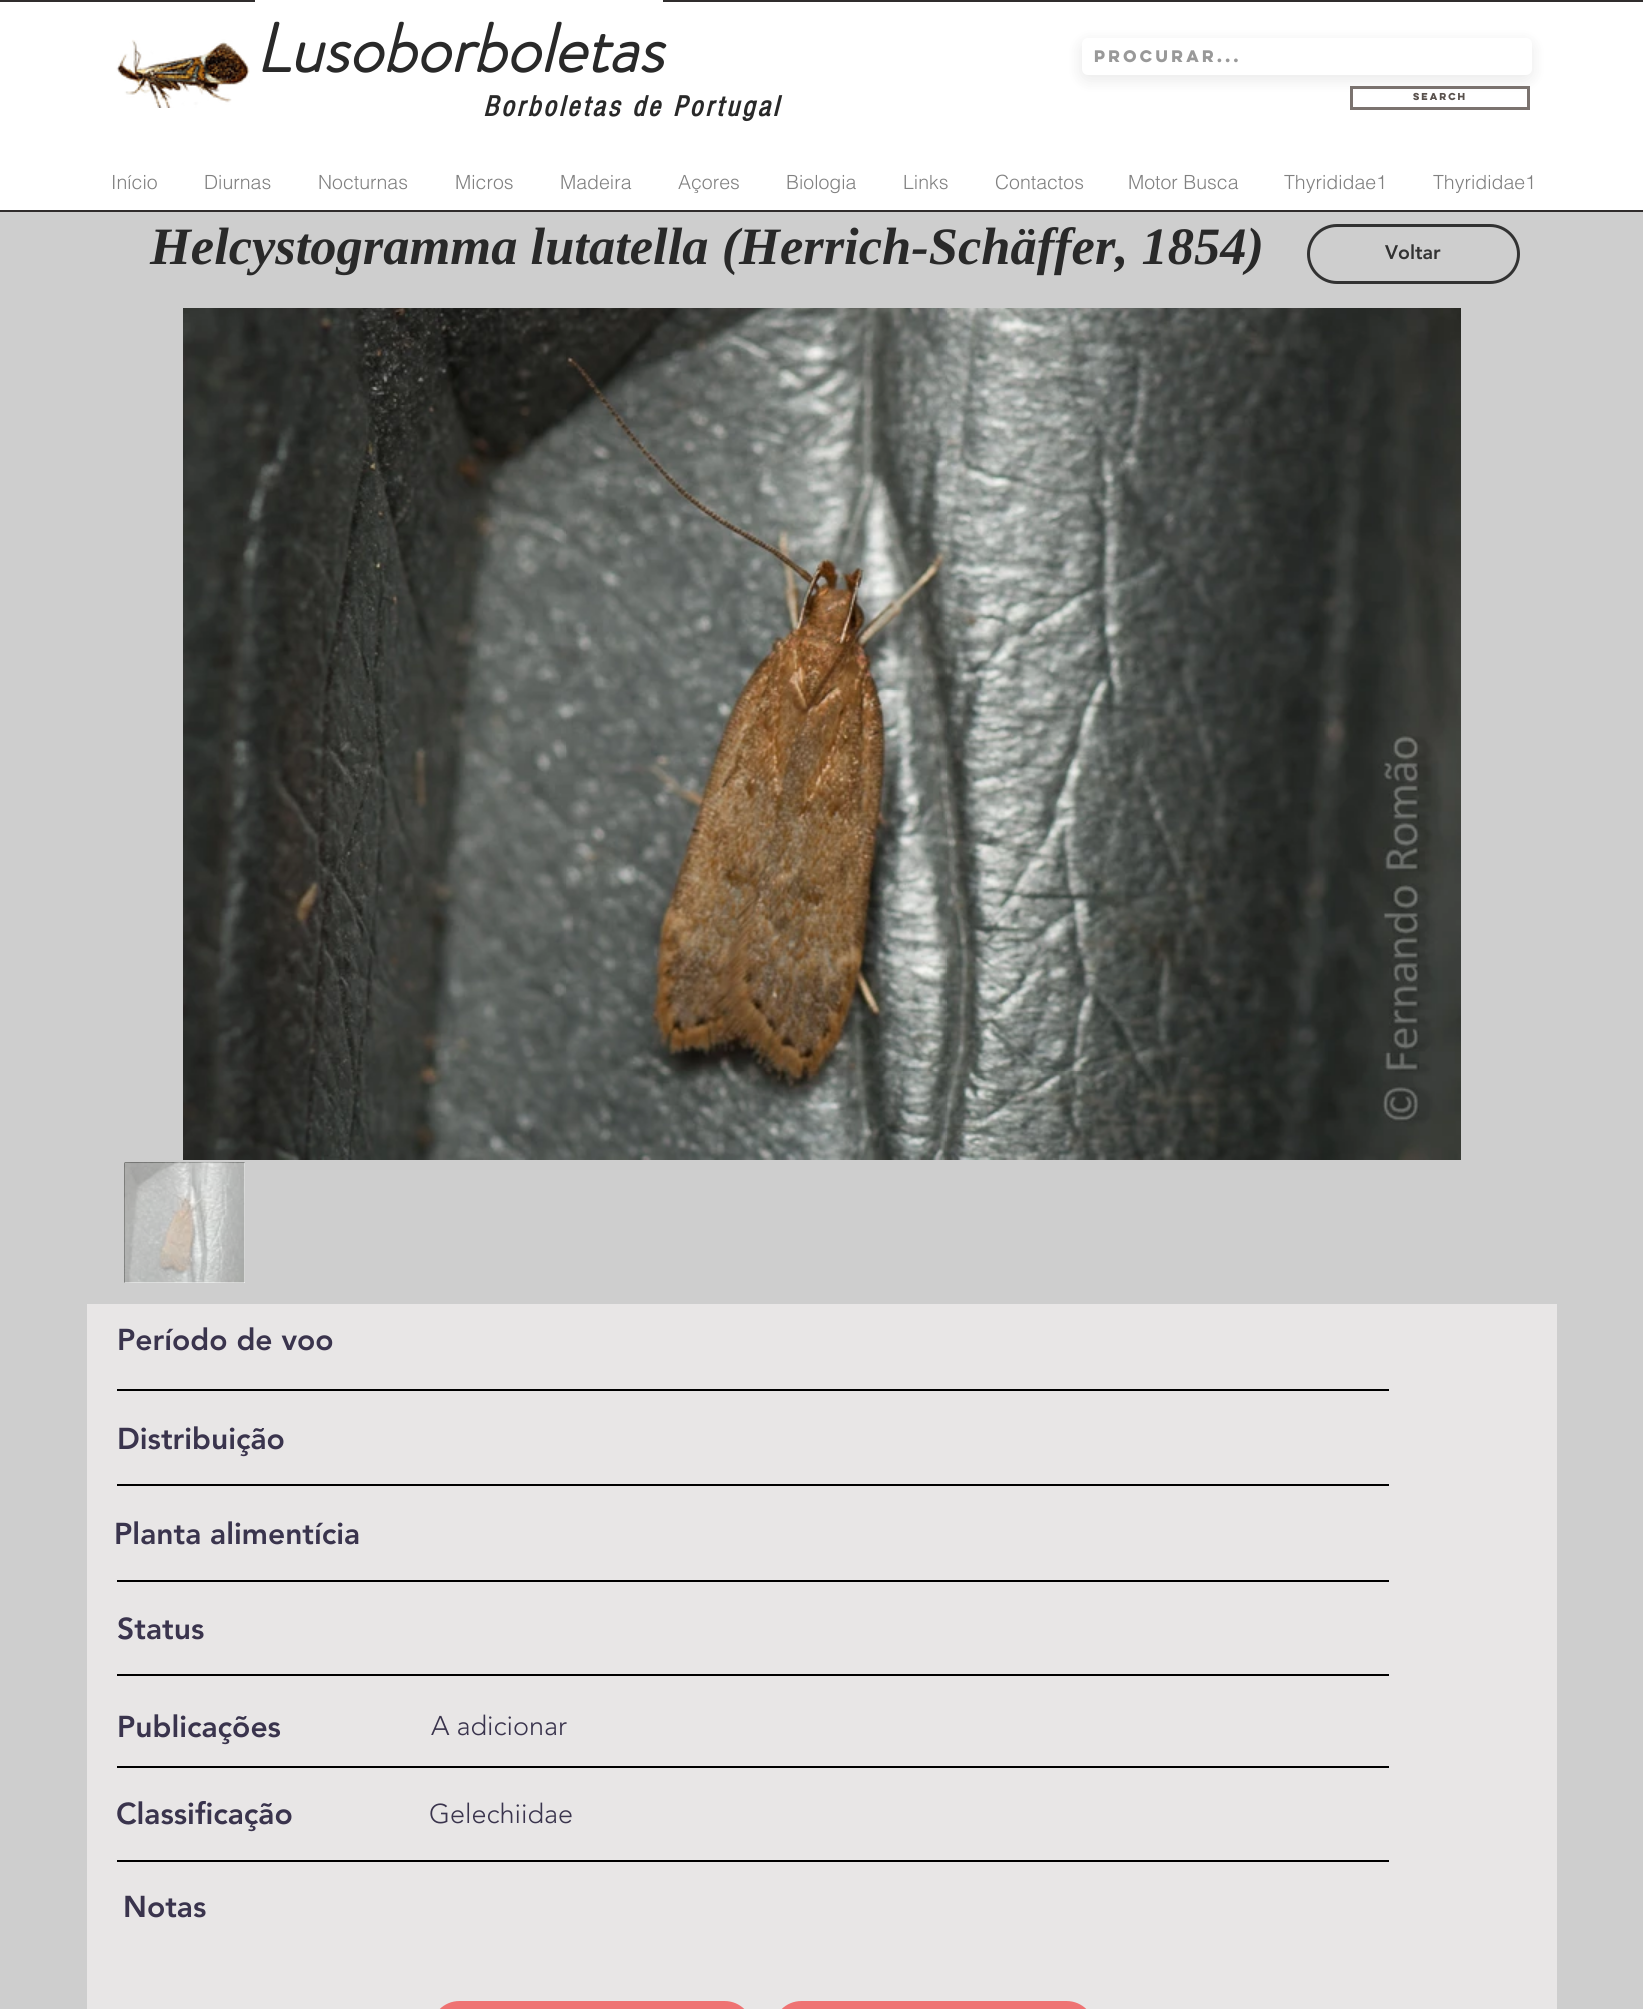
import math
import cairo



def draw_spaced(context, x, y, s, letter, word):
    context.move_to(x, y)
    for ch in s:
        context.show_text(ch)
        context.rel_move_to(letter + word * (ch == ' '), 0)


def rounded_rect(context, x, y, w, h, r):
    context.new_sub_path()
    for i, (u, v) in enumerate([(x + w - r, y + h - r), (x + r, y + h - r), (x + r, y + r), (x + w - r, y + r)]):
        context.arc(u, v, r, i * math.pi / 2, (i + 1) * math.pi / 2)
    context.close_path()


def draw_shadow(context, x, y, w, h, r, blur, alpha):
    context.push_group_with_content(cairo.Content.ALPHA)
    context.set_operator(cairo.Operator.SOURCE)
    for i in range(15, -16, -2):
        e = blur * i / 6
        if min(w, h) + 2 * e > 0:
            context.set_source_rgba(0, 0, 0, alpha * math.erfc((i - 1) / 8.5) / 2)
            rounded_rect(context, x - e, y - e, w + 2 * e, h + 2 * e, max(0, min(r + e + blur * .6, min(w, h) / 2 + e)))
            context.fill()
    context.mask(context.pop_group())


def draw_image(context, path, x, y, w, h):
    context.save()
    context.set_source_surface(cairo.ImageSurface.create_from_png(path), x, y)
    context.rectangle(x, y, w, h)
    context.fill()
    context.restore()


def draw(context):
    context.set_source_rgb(206 / 255, 206 / 255, 206 / 255)
    context.paint()
    context.set_source_rgb(48 / 255, 45 / 255, 45 / 255)
    context.rectangle(0, 0, 1643, 2)
    context.fill()
    context.rectangle(0, 210, 1643, 2)
    context.fill()
    context.set_source_rgb(1, 1, 1)
    context.rectangle(0, 2, 1643, 208)
    context.fill()
    draw_image(context, "images/1.png", 116, 39, 134, 69)
    context.rectangle(255, 0, 408, 2)
    context.fill()
    context.set_source_rgb(0, 0, 0)
    draw_shadow(context, 1080, 41, 453, 40, 8, 7.5, 0.08)
    context.set_source_rgb(1, 1, 1)
    rounded_rect(context, 1082, 38, 450, 37, 6)
    context.fill()
    context.rectangle(1351.5, 87.5, 177, 21)
    context.set_source_rgb(123 / 255, 115 / 255, 111 / 255)
    context.set_line_width(3)
    context.stroke()
    rounded_rect(context, 1308.5, 225.5, 210, 57, 28.5)
    context.set_source_rgb(50 / 255, 50 / 255, 50 / 255)
    context.stroke()
    draw_image(context, "images/2.png", 183, 308, 1278, 852)
    context.set_source_rgb(1, 1, 1)
    context.rectangle(125, 1163, 120, 120)
    context.fill()
    draw_image(context, "images/3.png", 124, 1162, 121, 121)
    context.set_source_rgb(232 / 255, 230 / 255, 230 / 255)
    context.rectangle(87, 1304, 1470, 705)
    context.fill()
    context.set_source_rgb(0, 0, 0)
    context.rectangle(117, 1389, 1272, 2)
    context.fill()
    context.rectangle(117, 1484, 1272, 2)
    context.fill()
    context.rectangle(117, 1580, 1272, 2)
    context.fill()
    context.rectangle(117, 1674, 1272, 2)
    context.fill()
    context.rectangle(117, 1766, 1272, 2)
    context.fill()
    context.rectangle(117, 1860, 1272, 2)
    context.fill()
    context.set_source_rgb(239 / 255, 115 / 255, 115 / 255)
    rounded_rect(context, 431, 2001, 322, 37, 28.5)
    context.fill()
    rounded_rect(context, 773, 2001, 322, 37, 28.5)
    context.fill()
    context.select_font_face("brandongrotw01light", cairo.FontSlant.ITALIC, cairo.FontWeight.BOLD)
    context.set_font_size(69)
    context.set_source_rgb(41 / 255, 41 / 255, 41 / 255)
    context.move_to(255, 72)
    context.show_text("Lusoborboletas")
    context.select_font_face("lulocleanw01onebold", cairo.FontSlant.NORMAL, cairo.FontWeight.BOLD)
    context.set_font_size(15)
    context.set_source_rgb(153 / 255, 153 / 255, 153 / 255)
    context.move_to(1094, 62)
    context.show_text("Procurar...")
    context.select_font_face("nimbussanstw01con", cairo.FontSlant.ITALIC, cairo.FontWeight.BOLD)
    context.set_font_size(30)
    context.set_source_rgb(41 / 255, 41 / 255, 41 / 255)
    draw_spaced(context, 483, 116, "Borboletas de Portugal", 3, 0)
    context.select_font_face("lulocleanw01onebold", cairo.FontSlant.NORMAL, cairo.FontWeight.BOLD)
    context.set_font_size(9)
    context.set_source_rgb(89 / 255, 81 / 255, 77 / 255)
    context.move_to(1413, 100)
    context.show_text("Search")
    context.select_font_face("helvetica Light")
    context.set_font_size(19.5)
    context.set_source_rgb(129 / 255, 129 / 255, 129 / 255)
    context.move_to(111, 189)
    context.show_text("Início")
    context.move_to(204, 189)
    context.show_text("Diurnas")
    context.move_to(318, 189)
    context.show_text("Nocturnas")
    context.move_to(455, 189)
    context.show_text("Micros")
    context.move_to(560, 189)
    context.show_text("Madeira")
    context.move_to(678, 189)
    context.show_text("Açores")
    context.move_to(786, 189)
    context.show_text("Biologia")
    context.move_to(903, 189)
    context.show_text("Links")
    context.move_to(995, 189)
    context.show_text("Contactos")
    context.move_to(1128, 189)
    context.show_text("Motor Busca")
    context.move_to(1284, 189)
    context.show_text("Thyrididae1")
    context.move_to(1433, 189)
    context.show_text("Thyrididae1")
    context.select_font_face("Liberation Serif", cairo.FontSlant.ITALIC, cairo.FontWeight.BOLD)
    context.set_font_size(52.5)
    context.set_source_rgb(41 / 255, 41 / 255, 41 / 255)
    context.move_to(150, 264)
    context.show_text("Helcystogramma lutatella (Herrich-Schäffer, 1854)")
    context.select_font_face("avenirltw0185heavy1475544 Black")
    context.set_font_size(19.5)
    context.set_source_rgb(50 / 255, 50 / 255, 50 / 255)
    context.move_to(1385, 259)
    context.show_text("Voltar")
    context.set_font_size(30)
    context.set_source_rgb(58 / 255, 52 / 255, 77 / 255)
    context.move_to(117, 1350)
    context.show_text("Período de voo")
    context.move_to(117, 1449)
    context.show_text("Distribuição")
    context.move_to(114, 1544)
    context.show_text("Planta alimentícia")
    context.move_to(117, 1639)
    context.show_text("Status")
    context.move_to(117, 1737)
    context.show_text("Publicações")
    context.select_font_face("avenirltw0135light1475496 Light")
    context.set_font_size(27)
    context.move_to(431, 1735)
    context.show_text("A adicionar")
    context.select_font_face("avenirltw0185heavy1475544 Black")
    context.set_font_size(30)
    context.move_to(116, 1824)
    context.show_text("Classificação")
    context.select_font_face("avenirltw0135light1475496 Light")
    context.set_font_size(27)
    context.move_to(429, 1823)
    context.show_text("Gelechiidae")
    context.select_font_face("avenirltw0185heavy1475544 Black")
    context.set_font_size(30)
    context.move_to(123, 1917)
    context.show_text("Notas")


surface = cairo.ImageSurface(cairo.Format.RGB24, 1643, 2009)
context = cairo.Context(surface)
options = cairo.FontOptions()
options.set_hint_metrics(cairo.HintMetrics.OFF)
options.set_hint_style(cairo.HintStyle.NONE)
context.set_font_options(options)
context.set_miter_limit(4)
draw(context)
surface.write_to_png("out.png")
